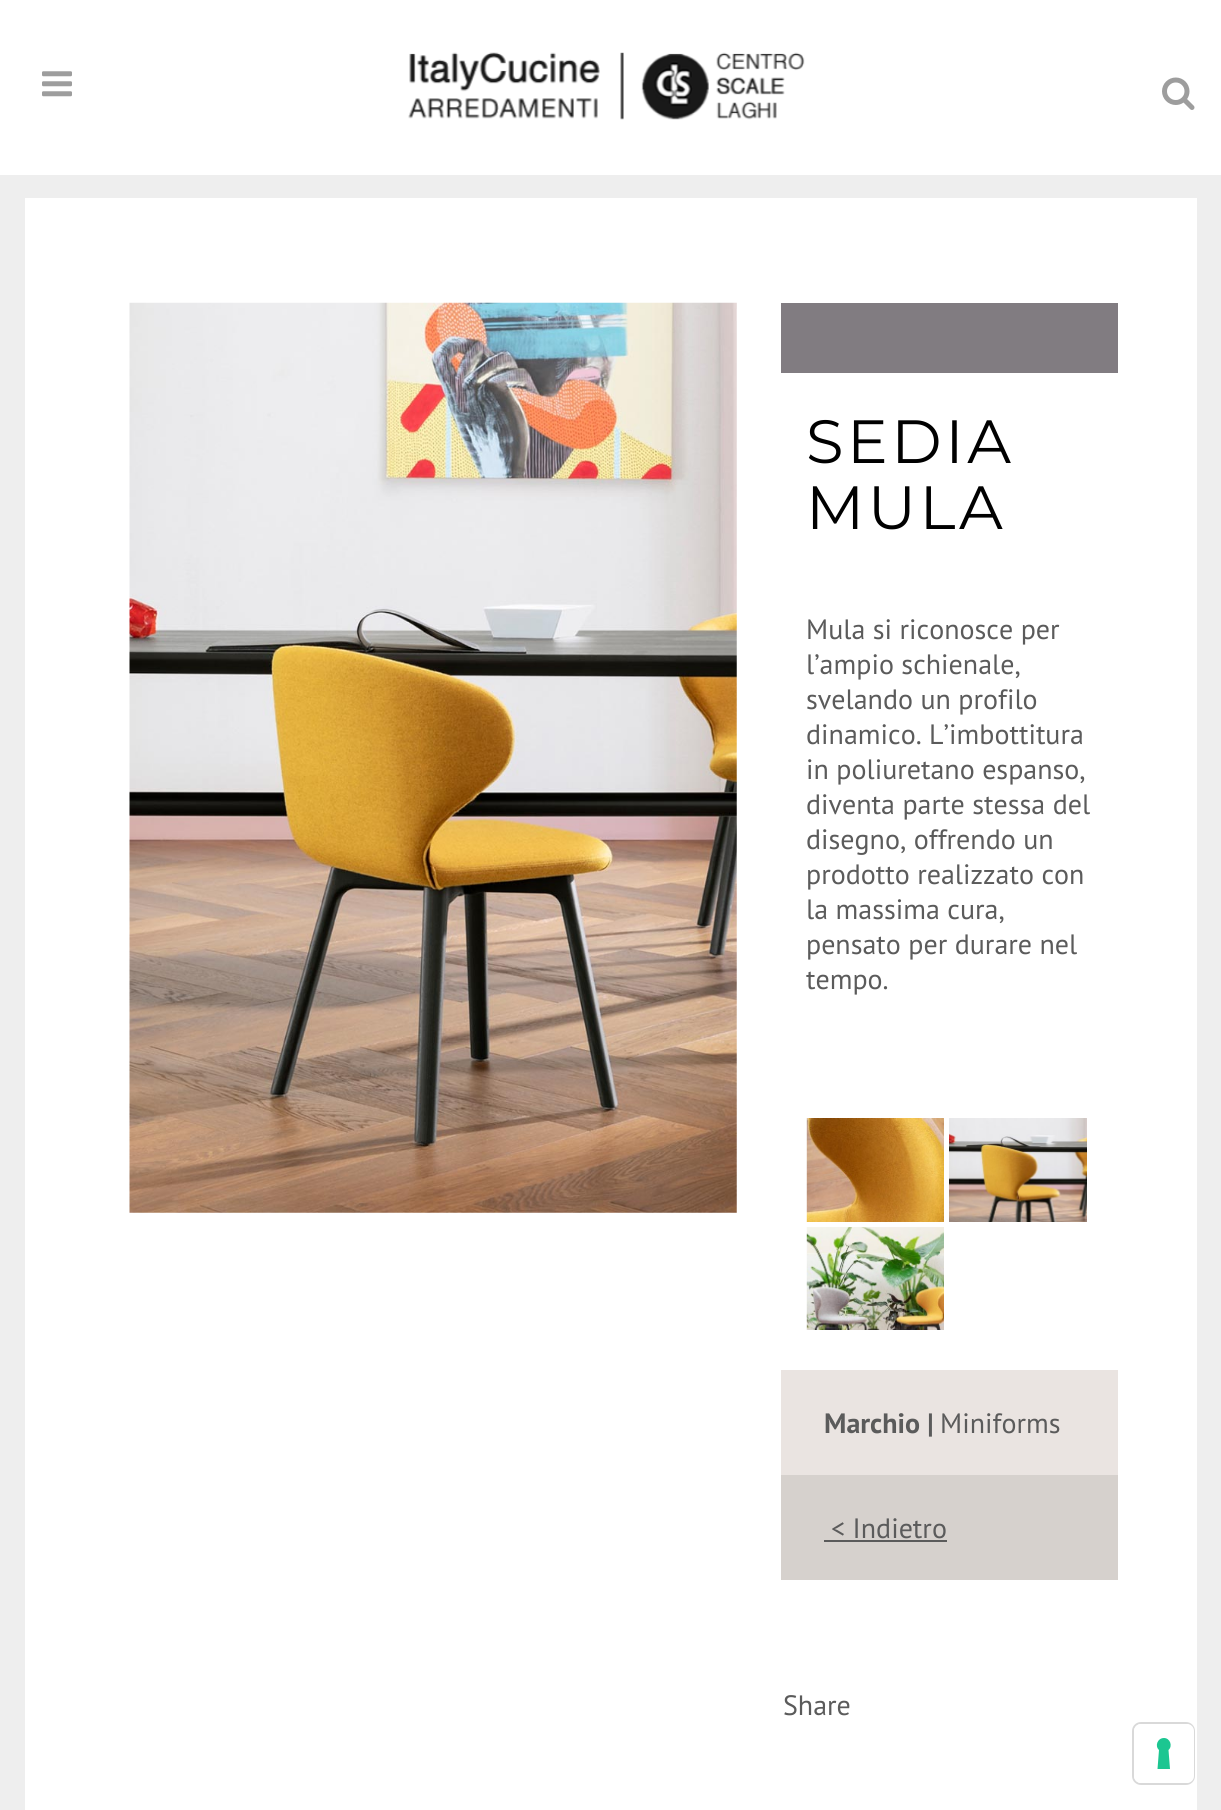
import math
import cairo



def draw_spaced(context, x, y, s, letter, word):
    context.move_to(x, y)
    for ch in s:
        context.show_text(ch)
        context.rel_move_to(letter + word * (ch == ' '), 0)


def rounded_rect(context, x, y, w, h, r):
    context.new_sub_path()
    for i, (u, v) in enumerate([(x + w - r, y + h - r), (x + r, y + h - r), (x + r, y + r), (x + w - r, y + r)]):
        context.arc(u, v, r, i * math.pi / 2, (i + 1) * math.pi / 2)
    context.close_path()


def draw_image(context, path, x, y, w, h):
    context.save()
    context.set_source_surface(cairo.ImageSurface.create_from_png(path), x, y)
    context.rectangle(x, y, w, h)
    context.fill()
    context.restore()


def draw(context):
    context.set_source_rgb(238 / 255, 238 / 255, 238 / 255)
    context.paint()
    context.set_source_rgb(1, 1, 1)
    context.rectangle(0, 0, 1221, 175)
    context.fill()
    draw_image(context, "images/1.png", 42, 71, 30, 26)
    draw_image(context, "images/2.png", 408, 52, 397, 68)
    draw_image(context, "images/3.png", 1162, 77, 33, 33)
    context.rectangle(25, 198, 1172, 1612)
    context.fill()
    draw_image(context, "images/4.png", 129, 302, 608, 911)
    context.set_source_rgb(129 / 255, 124 / 255, 129 / 255)
    context.rectangle(781, 303, 337, 70)
    context.fill()
    draw_image(context, "images/5.png", 806, 1118, 138, 104)
    draw_image(context, "images/6.png", 949, 1118, 138, 104)
    draw_image(context, "images/7.png", 806, 1227, 138, 103)
    context.set_source_rgb(234 / 255, 228 / 255, 225 / 255)
    context.rectangle(781, 1370, 337, 105)
    context.fill()
    context.set_source_rgb(214 / 255, 209 / 255, 205 / 255)
    context.rectangle(781, 1475, 337, 105)
    context.fill()
    context.set_source_rgb(91 / 255, 91 / 255, 91 / 255)
    context.rectangle(824, 1540, 123, 2)
    context.fill()
    rounded_rect(context, 1133, 1723, 61, 61, 8)
    context.set_source_rgb(217 / 255, 217 / 255, 217 / 255)
    context.stroke()
    context.set_source_rgb(1, 1, 1)
    rounded_rect(context, 1134, 1724, 60, 59, 7)
    context.fill()
    context.set_source_rgb(28 / 255, 198 / 255, 145 / 255)
    context.set_fill_rule(cairo.FillRule.EVEN_ODD)
    context.new_path()
    context.move_to(1164, 1738)
    context.curve_to(1170, 1738, 1173, 1746, 1168.5, 1750)
    context.line_to(1170, 1769)
    context.line_to(1157.5, 1769)
    context.line_to(1159, 1750)
    context.curve_to(1154.5, 1746, 1157.5, 1738, 1164, 1738)
    context.close_path()
    context.fill()
    context.select_font_face("Montserrat")
    context.set_font_size(61)
    context.set_source_rgb(0, 0, 0)
    draw_spaced(context, 806, 463, "SEDIA", 3.5, 0)
    draw_spaced(context, 806, 529, "MULA", 3.5, 0)
    context.select_font_face("PT Sans")
    context.set_font_size(28)
    context.set_source_rgb(91 / 255, 91 / 255, 91 / 255)
    context.move_to(806, 639)
    context.show_text("Mula si riconosce per")
    context.move_to(806, 674)
    context.show_text("l’ampio schienale,")
    context.move_to(806, 709)
    context.show_text("svelando un profilo")
    context.move_to(806, 744)
    context.show_text("dinamico. L’imbottitura")
    context.move_to(806, 779)
    context.show_text("in poliuretano espanso,")
    context.move_to(806, 814)
    context.show_text("diventa parte stessa del")
    context.move_to(806, 849)
    context.show_text("disegno, offrendo un")
    context.move_to(806, 884)
    context.show_text("prodotto realizzato con")
    context.move_to(806, 919)
    context.show_text("la massima cura,")
    context.move_to(806, 954)
    context.show_text("pensato per durare nel")
    context.move_to(806, 989)
    context.show_text("tempo.")
    context.select_font_face("PT Sans", cairo.FontSlant.NORMAL, cairo.FontWeight.BOLD)
    context.move_to(824, 1433)
    context.show_text("Marchio |")
    context.select_font_face("PT Sans")
    context.move_to(940, 1433)
    context.show_text("Miniforms")
    context.move_to(831, 1538)
    context.show_text("< Indietro")
    context.move_to(783, 1715)
    context.show_text("Share")


surface = cairo.ImageSurface(cairo.Format.RGB24, 1221, 1810)
context = cairo.Context(surface)
options = cairo.FontOptions()
options.set_hint_metrics(cairo.HintMetrics.OFF)
options.set_hint_style(cairo.HintStyle.NONE)
context.set_font_options(options)
context.set_miter_limit(4)
draw(context)
surface.write_to_png("out.png")
